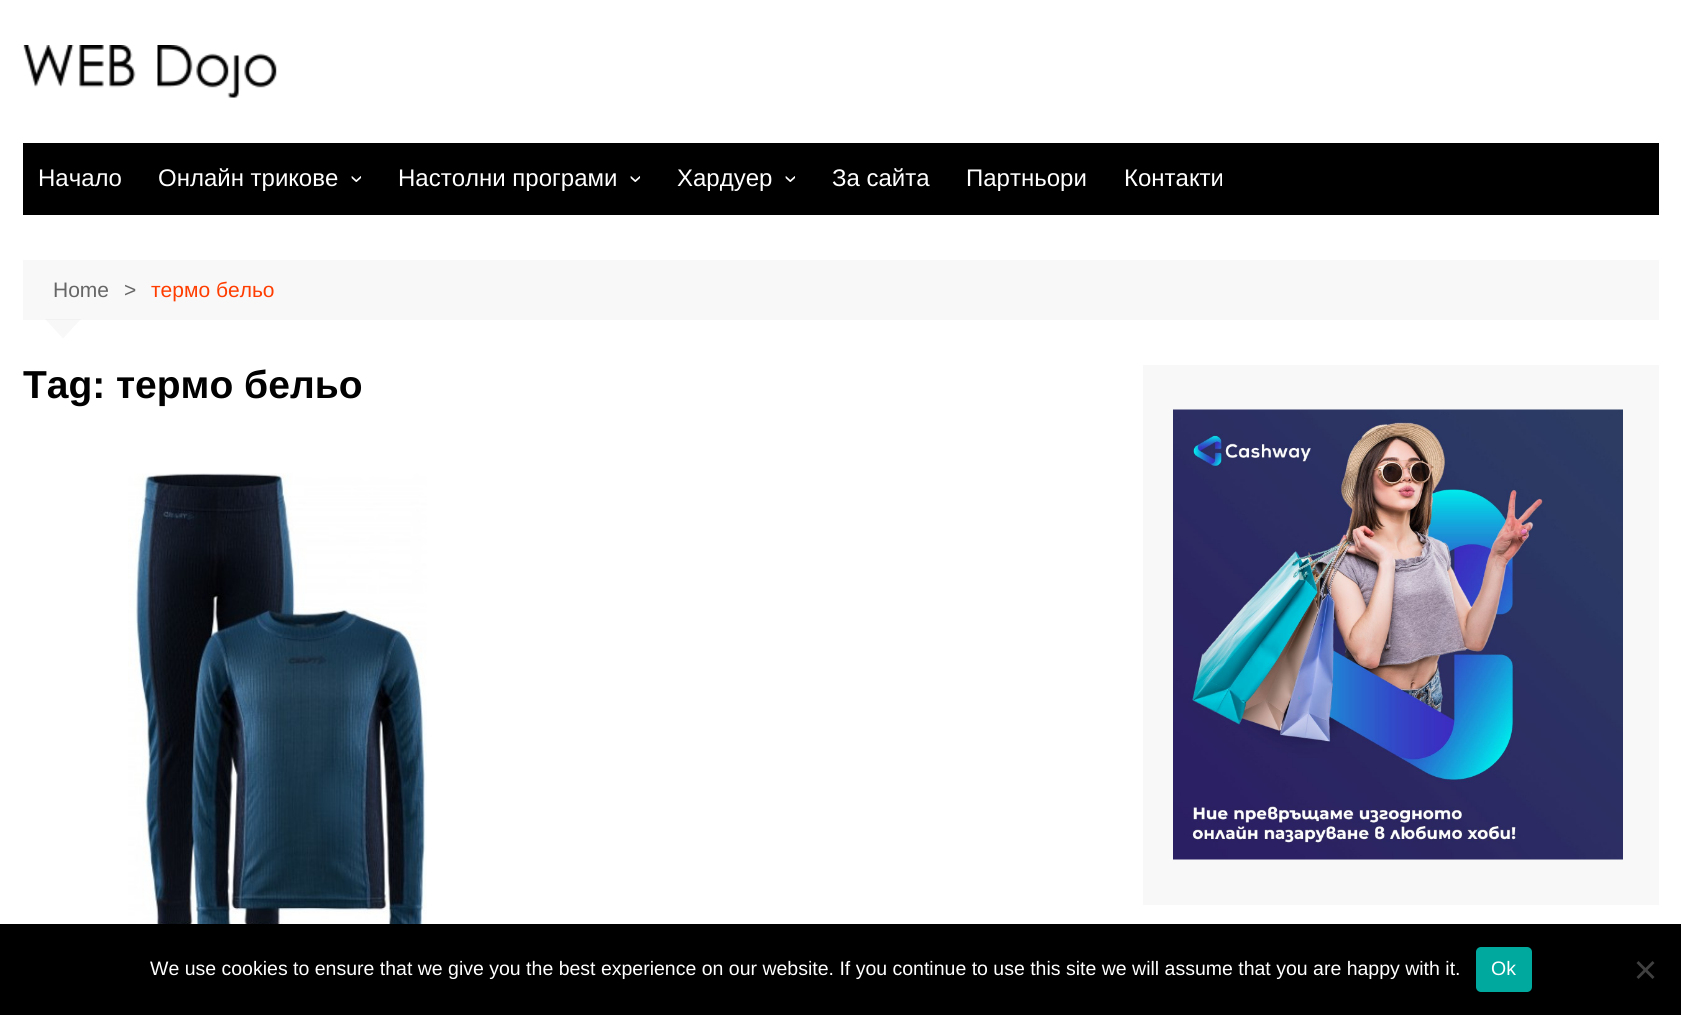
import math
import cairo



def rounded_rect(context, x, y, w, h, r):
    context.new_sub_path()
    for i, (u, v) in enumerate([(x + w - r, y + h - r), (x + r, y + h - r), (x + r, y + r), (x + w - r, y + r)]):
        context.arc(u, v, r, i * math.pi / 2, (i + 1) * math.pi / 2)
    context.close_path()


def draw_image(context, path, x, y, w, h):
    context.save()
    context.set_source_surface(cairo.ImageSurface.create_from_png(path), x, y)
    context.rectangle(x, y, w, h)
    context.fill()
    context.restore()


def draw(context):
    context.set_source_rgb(1, 1, 1)
    context.paint()
    draw_image(context, "images/1.png", 23, 45, 254, 53)
    context.set_source_rgb(0, 0, 0)
    context.rectangle(23, 143, 1636, 72)
    context.fill()
    context.set_source_rgb(248 / 255, 248 / 255, 248 / 255)
    context.rectangle(23, 260, 1636, 60)
    context.fill()
    context.set_source_rgba(0, 0, 0, 0.03)
    context.new_path()
    context.move_to(45, 319)
    context.line_to(81, 319)
    context.line_to(63, 338.5)
    context.close_path()
    context.fill()
    draw_image(context, "images/2.png", 128, 473, 299, 451)
    context.set_source_rgb(248 / 255, 248 / 255, 248 / 255)
    context.rectangle(1143, 365, 516, 540)
    context.fill()
    draw_image(context, "images/3.png", 1173, 409, 450, 451)
    context.set_source_rgb(0, 0, 0)
    context.rectangle(0, 924, 1681, 91)
    context.fill()
    context.set_source_rgb(0, 169 / 255, 157 / 255)
    rounded_rect(context, 1476, 947, 56, 45, 5)
    context.fill()
    context.set_source_rgb(64 / 255, 64 / 255, 64 / 255)
    context.new_path()
    context.move_to(1652.5, 961)
    context.line_to(1654.5, 963)
    context.line_to(1638.5, 979)
    context.line_to(1636.5, 977)
    context.close_path()
    context.fill()
    context.new_path()
    context.move_to(1636.5, 963)
    context.line_to(1638.5, 961)
    context.line_to(1654.5, 977)
    context.line_to(1652.5, 979)
    context.close_path()
    context.fill()
    context.select_font_face("Liberation Sans")
    context.set_font_size(24)
    context.set_source_rgb(1, 1, 1)
    context.move_to(38, 186)
    context.show_text("Начало")
    context.move_to(158, 186)
    context.show_text("Онлайн трикове")
    context.save()
    context.translate(350, 175)
    context.rotate(90 * math.pi / 180)
    context.move_to(0, 0)
    context.show_text("›")
    context.restore()
    context.move_to(398, 186)
    context.show_text("Настолни програми")
    context.save()
    context.translate(629, 175)
    context.rotate(90 * math.pi / 180)
    context.move_to(0, 0)
    context.show_text("›")
    context.restore()
    context.move_to(677, 186)
    context.show_text("Хардуер")
    context.save()
    context.translate(784, 175)
    context.rotate(90 * math.pi / 180)
    context.move_to(0, 0)
    context.show_text("›")
    context.restore()
    context.move_to(832, 186)
    context.show_text("За сайта")
    context.move_to(966, 186)
    context.show_text("Партньори")
    context.move_to(1124, 186)
    context.show_text("Контакти")
    context.set_font_size(21)
    context.set_source_rgb(102 / 255, 102 / 255, 102 / 255)
    context.move_to(53, 297)
    context.show_text("Home")
    context.move_to(124, 297)
    context.show_text(">")
    context.set_source_rgb(1, 61 / 255, 0)
    context.move_to(151, 297)
    context.show_text("термо бельо")
    context.save()
    context.rectangle(23, 365, 1075, 42)
    context.clip()
    context.select_font_face("Liberation Sans", cairo.FontSlant.NORMAL, cairo.FontWeight.BOLD)
    context.set_font_size(39)
    context.set_source_rgb(1 / 255, 1 / 255, 1 / 255)
    context.move_to(23, 398)
    context.show_text("Tag:")
    context.restore()
    context.select_font_face("Liberation Sans", cairo.FontSlant.NORMAL, cairo.FontWeight.BOLD)
    context.set_font_size(39)
    context.set_source_rgb(1 / 255, 1 / 255, 1 / 255)
    context.move_to(116, 398)
    context.show_text("термо бельо")
    context.select_font_face("Liberation Sans")
    context.set_font_size(19.5)
    context.set_source_rgb(1, 1, 1)
    context.move_to(150, 975)
    context.show_text("We use cookies to ensure that we give you the best experience on our website. If you continue to use this site we will assume that you are happy with it.")
    context.move_to(1491, 975)
    context.show_text("Ok")


surface = cairo.ImageSurface(cairo.Format.RGB24, 1681, 1015)
context = cairo.Context(surface)
options = cairo.FontOptions()
options.set_hint_metrics(cairo.HintMetrics.OFF)
options.set_hint_style(cairo.HintStyle.NONE)
context.set_font_options(options)
context.set_miter_limit(4)
draw(context)
surface.write_to_png("out.png")
